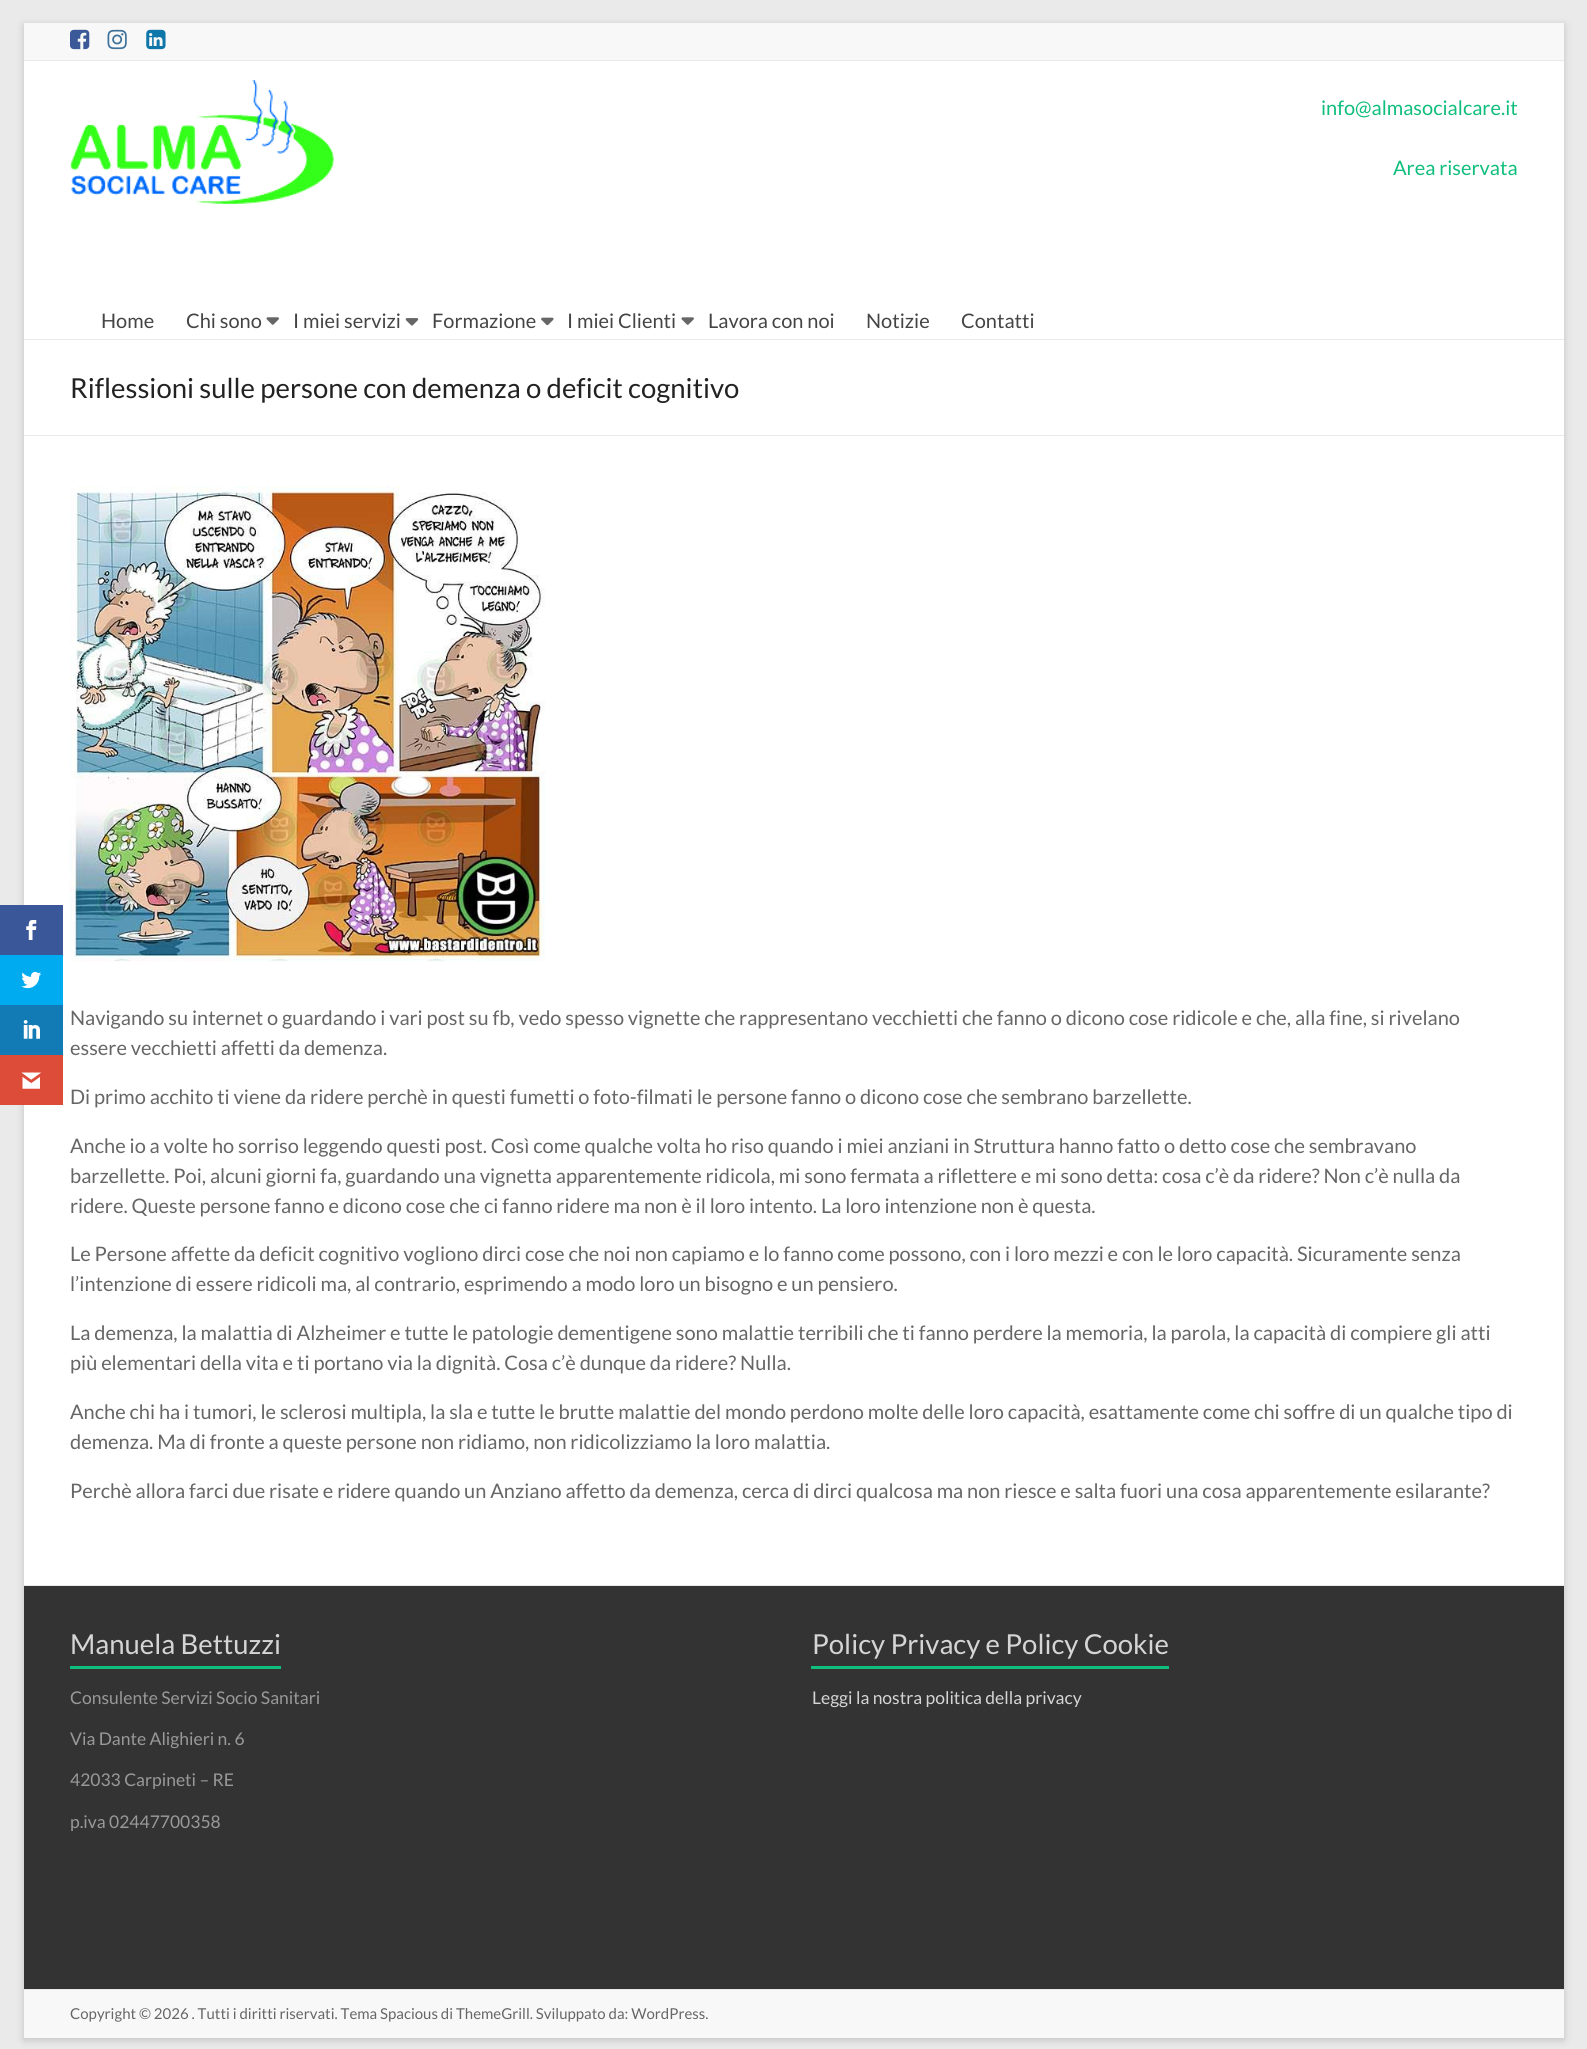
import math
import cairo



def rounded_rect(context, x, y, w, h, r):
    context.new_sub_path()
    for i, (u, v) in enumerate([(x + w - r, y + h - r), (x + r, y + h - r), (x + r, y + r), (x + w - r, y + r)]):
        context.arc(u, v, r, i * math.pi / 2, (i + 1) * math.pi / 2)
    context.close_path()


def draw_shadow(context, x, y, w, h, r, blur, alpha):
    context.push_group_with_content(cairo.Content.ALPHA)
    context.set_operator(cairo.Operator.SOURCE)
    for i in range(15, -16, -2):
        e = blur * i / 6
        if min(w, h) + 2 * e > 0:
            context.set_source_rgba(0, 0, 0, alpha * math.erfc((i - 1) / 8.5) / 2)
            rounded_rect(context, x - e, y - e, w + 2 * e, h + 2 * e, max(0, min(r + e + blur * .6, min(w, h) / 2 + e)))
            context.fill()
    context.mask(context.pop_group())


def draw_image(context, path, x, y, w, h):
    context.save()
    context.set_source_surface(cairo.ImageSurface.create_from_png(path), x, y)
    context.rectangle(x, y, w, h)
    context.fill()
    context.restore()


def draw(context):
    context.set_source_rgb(234 / 255, 234 / 255, 234 / 255)
    context.paint()
    context.set_source_rgb(100 / 255, 100 / 255, 100 / 255)
    draw_shadow(context, 24, 25, 1540, 2015, 0, 4, 0.3)
    context.set_source_rgb(1, 1, 1)
    context.rectangle(24, 61, 1540, 1524)
    context.fill()
    context.set_source_rgb(58 / 255, 87 / 255, 154 / 255)
    context.rectangle(0, 905, 63, 50)
    context.fill()
    draw_image(context, "images/1.png", 26, 920, 11, 20)
    context.set_source_rgb(0, 171 / 255, 240 / 255)
    context.rectangle(0, 955, 63, 50)
    context.fill()
    draw_image(context, "images/2.png", 21, 971, 21, 18)
    context.set_source_rgb(18 / 255, 123 / 255, 182 / 255)
    context.rectangle(0, 1005, 63, 50)
    context.fill()
    draw_image(context, "images/3.png", 23, 1020, 17, 19)
    context.set_source_rgb(221 / 255, 75 / 255, 57 / 255)
    context.rectangle(0, 1055, 63, 50)
    context.fill()
    draw_image(context, "images/4.png", 21, 1072, 20, 17)
    context.set_source_rgb(248 / 255, 248 / 255, 248 / 255)
    context.rectangle(24, 23, 1540, 37)
    context.fill()
    context.set_source_rgb(234 / 255, 234 / 255, 234 / 255)
    context.rectangle(24, 60, 1540, 1)
    context.fill()
    draw_image(context, "images/5.png", 70, 29, 20, 21)
    draw_image(context, "images/6.png", 107, 29, 20, 21)
    draw_image(context, "images/7.png", 146, 29, 20, 21)
    context.rectangle(24, 339, 1540, 1)
    context.fill()
    draw_image(context, "images/8.png", 70, 80, 264, 125)
    draw_image(context, "images/9.png", 266, 317, 13, 8)
    draw_image(context, "images/10.png", 405, 318, 14, 8)
    draw_image(context, "images/11.png", 541, 317, 13, 9)
    draw_image(context, "images/12.png", 681, 317, 13, 8)
    context.rectangle(24, 435, 1540, 1)
    context.fill()
    draw_image(context, "images/13.png", 70, 486, 475, 476)
    context.set_source_rgb(51 / 255, 51 / 255, 51 / 255)
    context.rectangle(24, 1586, 1540, 403)
    context.fill()
    context.set_source_rgb(234 / 255, 234 / 255, 234 / 255)
    context.rectangle(24, 1585, 1540, 1)
    context.fill()
    context.set_source_rgb(15 / 255, 190 / 255, 124 / 255)
    context.rectangle(70, 1666, 211, 3)
    context.fill()
    context.rectangle(811, 1666, 358, 3)
    context.fill()
    context.set_source_rgb(248 / 255, 248 / 255, 248 / 255)
    context.rectangle(24, 1990, 1540, 48)
    context.fill()
    context.set_source_rgb(234 / 255, 234 / 255, 234 / 255)
    context.rectangle(24, 1989, 1540, 1)
    context.fill()
    context.select_font_face("Lato")
    context.set_font_size(20)
    context.set_source_rgb(15 / 255, 190 / 255, 124 / 255)
    context.move_to(1321, 115)
    context.show_text("info@almasocialcare.it")
    context.move_to(1393, 175)
    context.show_text("Area riservata")
    context.set_source_rgb(68 / 255, 68 / 255, 68 / 255)
    context.move_to(101, 328)
    context.show_text("Home")
    context.move_to(186, 328)
    context.show_text("Chi sono")
    context.move_to(293, 328)
    context.show_text("I miei servizi")
    context.move_to(432, 328)
    context.show_text("Formazione")
    context.move_to(567, 328)
    context.show_text("I miei Clienti")
    context.move_to(708, 328)
    context.show_text("Lavora con noi")
    context.move_to(866, 328)
    context.show_text("Notizie")
    context.move_to(961, 328)
    context.show_text("Contatti")
    context.set_font_size(27.5)
    context.set_source_rgb(34 / 255, 34 / 255, 34 / 255)
    context.move_to(70, 398)
    context.show_text("Riflessioni sulle persone con demenza o deficit cognitivo")
    context.set_font_size(20)
    context.set_source_rgb(102 / 255, 102 / 255, 102 / 255)
    context.move_to(70, 1025)
    context.show_text("Navigando su internet o guardando i vari post su fb, vedo spesso vignette che rappresentano vecchietti che fanno o dicono cose ridicole e che, alla fine, si rivelano")
    context.move_to(70, 1055)
    context.show_text("essere vecchietti affetti da demenza.")
    context.move_to(70, 1104)
    context.show_text("Di primo acchito ti viene da ridere perchè in questi fumetti o foto-filmati le persone fanno o dicono cose che sembrano barzellette.")
    context.move_to(70, 1153)
    context.show_text("Anche io a volte ho sorriso leggendo questi post. Così come qualche volta ho riso quando i miei anziani in Struttura hanno fatto o detto cose che sembravano")
    context.move_to(70, 1183)
    context.show_text("barzellette. Poi, alcuni giorni fa, guardando una vignetta apparentemente ridicola, mi sono fermata a riflettere e mi sono detta: cosa c’è da ridere? Non c’è nulla da")
    context.move_to(70, 1213)
    context.show_text("ridere. Queste persone fanno e dicono cose che ci fanno ridere ma non è il loro intento. La loro intenzione non è questa.")
    context.move_to(70, 1261)
    context.show_text("Le Persone affette da deficit cognitivo vogliono dirci cose che noi non capiamo e lo fanno come possono, con i loro mezzi e con le loro capacità. Sicuramente senza")
    context.move_to(70, 1291)
    context.show_text("l’intenzione di essere ridicoli ma, al contrario, esprimendo a modo loro un bisogno e un pensiero.")
    context.move_to(70, 1340)
    context.show_text("La demenza, la malattia di Alzheimer e tutte le patologie dementigene sono malattie terribili che ti fanno perdere la memoria, la parola, la capacità di compiere gli atti")
    context.move_to(70, 1370)
    context.show_text("più elementari della vita e ti portano via la dignità. Cosa c’è dunque da ridere? Nulla.")
    context.move_to(70, 1419)
    context.show_text("Anche chi ha i tumori, le sclerosi multipla, la sla e tutte le brutte malattie del mondo perdono molte delle loro capacità, esattamente come chi soffre di un qualche tipo di")
    context.move_to(70, 1449)
    context.show_text("demenza. Ma di fronte a queste persone non ridiamo, non ridicolizziamo la loro malattia.")
    context.move_to(70, 1498)
    context.show_text("Perchè allora farci due risate e ridere quando un Anziano affetto da demenza, cerca di dirci qualcosa ma non riesce e salta fuori una cosa apparentemente esilarante?")
    context.set_font_size(27.5)
    context.set_source_rgb(213 / 255, 213 / 255, 213 / 255)
    context.move_to(70, 1654)
    context.show_text("Manuela Bettuzzi")
    context.set_font_size(17.5)
    context.set_source_rgb(153 / 255, 153 / 255, 153 / 255)
    context.move_to(70, 1704)
    context.show_text("Consulente Servizi Socio Sanitari")
    context.move_to(70, 1745)
    context.show_text("Via Dante Alighieri n. 6")
    context.move_to(70, 1786)
    context.show_text("42033 Carpineti – RE")
    context.move_to(70, 1828)
    context.show_text("p.iva 02447700358")
    context.set_font_size(27.5)
    context.set_source_rgb(213 / 255, 213 / 255, 213 / 255)
    context.move_to(812, 1654)
    context.show_text("Policy Privacy e Policy Cookie")
    context.set_font_size(17.5)
    context.move_to(812, 1704)
    context.show_text("Leggi la nostra politica della privacy")
    context.set_font_size(15)
    context.set_source_rgb(102 / 255, 102 / 255, 102 / 255)
    context.move_to(70, 2019)
    context.show_text("Copyright © 2026 . Tutti i diritti riservati. Tema Spacious di ThemeGrill. Sviluppato da: WordPress.")


surface = cairo.ImageSurface(cairo.Format.RGB24, 1587, 2049)
context = cairo.Context(surface)
options = cairo.FontOptions()
options.set_hint_metrics(cairo.HintMetrics.OFF)
options.set_hint_style(cairo.HintStyle.NONE)
context.set_font_options(options)
context.set_miter_limit(4)
draw(context)
surface.write_to_png("out.png")
